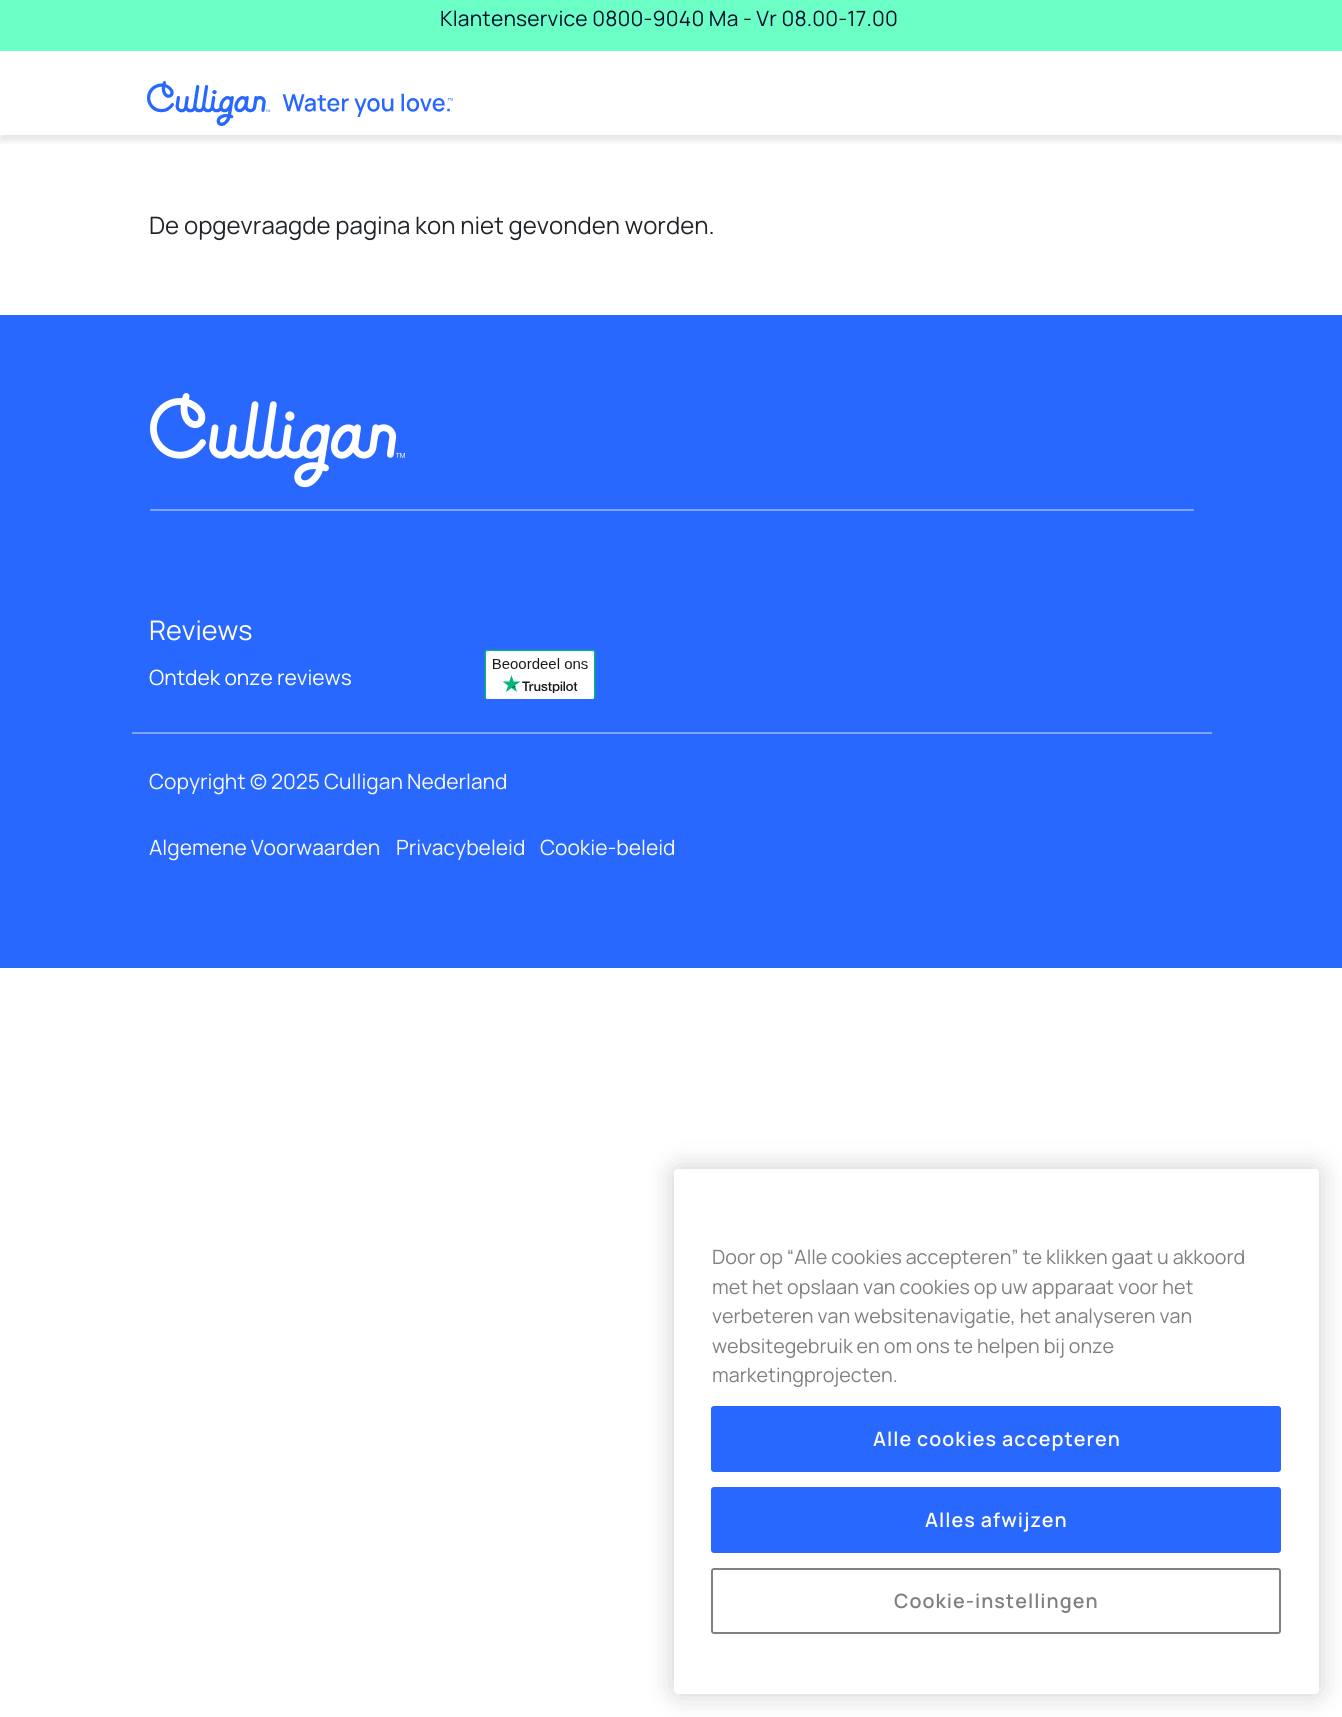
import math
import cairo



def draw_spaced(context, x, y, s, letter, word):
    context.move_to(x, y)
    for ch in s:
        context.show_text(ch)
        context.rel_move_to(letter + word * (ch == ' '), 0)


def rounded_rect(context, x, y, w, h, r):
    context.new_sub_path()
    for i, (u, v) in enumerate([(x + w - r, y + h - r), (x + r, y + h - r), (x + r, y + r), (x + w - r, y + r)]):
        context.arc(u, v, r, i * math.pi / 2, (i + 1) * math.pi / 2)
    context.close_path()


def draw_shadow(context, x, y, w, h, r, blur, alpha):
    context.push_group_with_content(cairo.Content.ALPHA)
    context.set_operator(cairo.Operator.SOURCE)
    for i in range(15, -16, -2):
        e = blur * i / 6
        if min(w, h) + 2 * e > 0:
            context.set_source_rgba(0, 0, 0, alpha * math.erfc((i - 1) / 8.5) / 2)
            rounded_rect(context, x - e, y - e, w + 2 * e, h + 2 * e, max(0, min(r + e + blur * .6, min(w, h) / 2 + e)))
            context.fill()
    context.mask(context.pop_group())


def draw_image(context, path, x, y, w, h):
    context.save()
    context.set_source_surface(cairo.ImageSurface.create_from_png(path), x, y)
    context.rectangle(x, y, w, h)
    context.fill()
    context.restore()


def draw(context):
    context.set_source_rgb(1, 1, 1)
    context.paint()
    context.set_source_rgb(107 / 255, 1, 198 / 255)
    context.rectangle(0, 0, 1342, 51)
    context.fill()
    context.save()
    context.rectangle(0, 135, 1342, 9)
    context.clip()
    context.set_source_rgb(0, 0, 0)
    draw_shadow(context, 0, 57, 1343, 84, 0, 3, 0.1)
    context.restore()
    draw_image(context, "images/1.png", 147, 81, 306, 45)
    context.set_source_rgb(41 / 255, 104 / 255, 254 / 255)
    context.rectangle(0, 315, 1342, 653)
    context.fill()
    context.set_source_rgb(127 / 255, 164 / 255, 254 / 255)
    context.rectangle(150, 509, 1044, 2)
    context.fill()
    draw_image(context, "images/2.png", 150, 393, 255, 95)
    context.rectangle(132, 732, 1080, 2)
    context.fill()
    draw_image(context, "images/3.png", 484, 649, 112, 50)
    context.set_source_rgb(0, 0, 0)
    draw_shadow(context, 674, 1169, 645, 525, 4, 13.5, 0.2)
    context.set_source_rgb(1, 1, 1)
    rounded_rect(context, 674, 1169, 645, 525, 4)
    context.fill()
    context.set_source_rgb(41 / 255, 104 / 255, 254 / 255)
    rounded_rect(context, 712, 1407, 568, 64, 2)
    context.fill_preserve()
    context.stroke()
    rounded_rect(context, 712, 1488, 568, 64, 2)
    context.fill_preserve()
    context.stroke()
    rounded_rect(context, 712, 1569, 568, 64, 2)
    context.set_source_rgb(128 / 255, 128 / 255, 128 / 255)
    context.stroke()
    context.select_font_face("Manrope")
    context.set_font_size(21)
    context.set_source_rgb(0, 14 / 255, 46 / 255)
    draw_spaced(context, 440, 26, "Klantenservice 0800-9040 Ma - Vr 08.00-17.00", 0.2, 0)
    context.set_font_size(24)
    context.set_source_rgb(33 / 255, 37 / 255, 41 / 255)
    context.move_to(149, 234)
    context.show_text("De opgevraagde pagina kon niet gevonden worden.")
    context.set_font_size(27)
    context.set_source_rgb(1, 1, 1)
    context.move_to(149, 640)
    context.show_text("Reviews")
    context.set_font_size(21)
    context.move_to(149, 685)
    context.show_text("Ontdek onze reviews")
    context.set_source_rgb(248 / 255, 248 / 255, 248 / 255)
    context.move_to(149, 789)
    context.show_text("Copyright © 2025 Culligan Nederland")
    context.move_to(149, 855)
    context.show_text("Algemene Voorwaarden")
    context.move_to(396, 855)
    context.show_text("Privacybeleid")
    context.move_to(540, 855)
    context.show_text("Cookie-beleid")
    context.set_font_size(19.7)
    context.set_source_rgb(128 / 255, 128 / 255, 128 / 255)
    context.move_to(712, 1264)
    context.show_text("Door op “Alle cookies accepteren” te klikken gaat u akkoord")
    context.move_to(712, 1294)
    context.show_text("met het opslaan van cookies op uw apparaat voor het")
    context.move_to(712, 1323)
    context.show_text("verbeteren van websitenavigatie, het analyseren van")
    context.move_to(712, 1353)
    context.show_text("websitegebruik en om ons te helpen bij onze")
    context.move_to(712, 1382)
    context.show_text("marketingprojecten.")
    context.select_font_face("Manrope SemiBold")
    context.set_source_rgb(1, 1, 1)
    draw_spaced(context, 873, 1446, "Alle cookies accepteren", 1, 0)
    draw_spaced(context, 925, 1527, "Alles afwijzen", 1, 0)
    context.set_source_rgb(128 / 255, 128 / 255, 128 / 255)
    draw_spaced(context, 894, 1608, "Cookie-instellingen", 1, 0)


surface = cairo.ImageSurface(cairo.Format.RGB24, 1342, 1717)
context = cairo.Context(surface)
options = cairo.FontOptions()
options.set_hint_metrics(cairo.HintMetrics.OFF)
options.set_hint_style(cairo.HintStyle.NONE)
context.set_font_options(options)
context.set_miter_limit(4)
draw(context)
surface.write_to_png("out.png")
